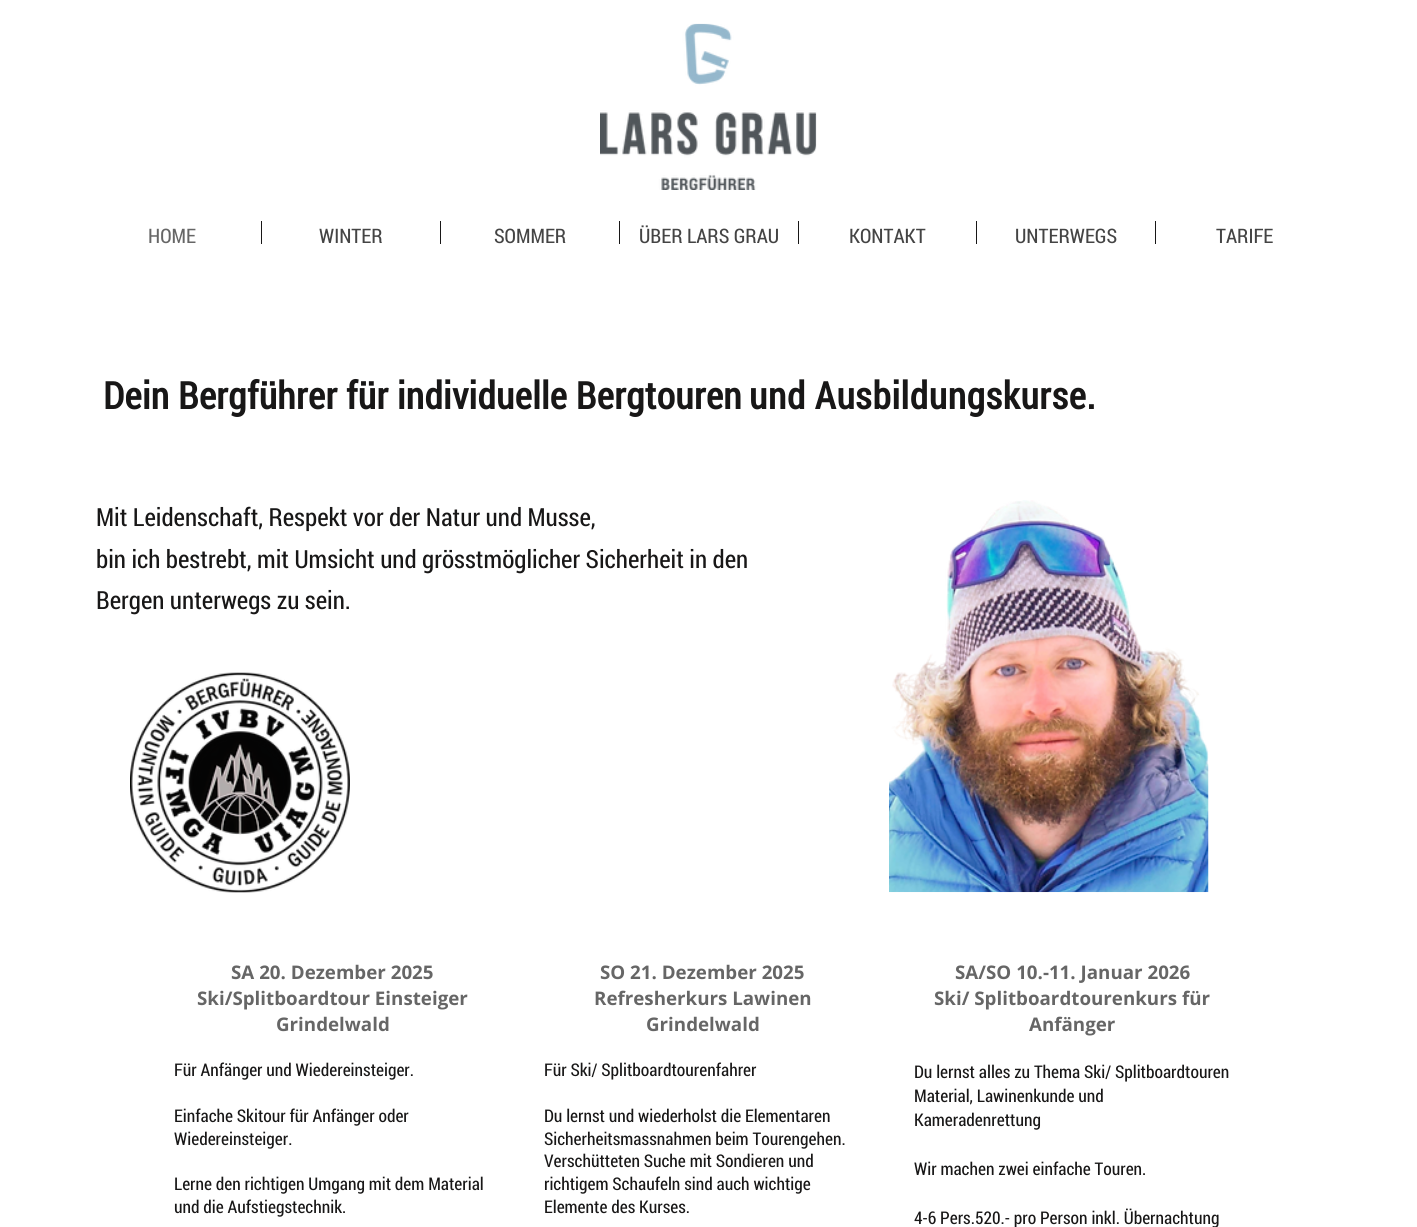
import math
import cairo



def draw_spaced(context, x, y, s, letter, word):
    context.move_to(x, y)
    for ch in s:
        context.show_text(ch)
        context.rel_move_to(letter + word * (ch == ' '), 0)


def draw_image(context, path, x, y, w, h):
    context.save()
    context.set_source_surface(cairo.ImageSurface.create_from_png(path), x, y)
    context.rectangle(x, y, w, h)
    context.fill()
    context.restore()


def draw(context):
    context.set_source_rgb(1, 1, 1)
    context.paint()
    draw_image(context, "images/1.png", 600, 23, 217, 167)
    context.set_source_rgb(24 / 255, 23 / 255, 23 / 255)
    context.rectangle(261, 221, 1, 23)
    context.fill()
    context.rectangle(440, 221, 1, 23)
    context.fill()
    context.rectangle(619, 221, 1, 23)
    context.fill()
    context.rectangle(798, 221, 1, 23)
    context.fill()
    context.rectangle(976, 221, 1, 23)
    context.fill()
    context.rectangle(1155, 221, 1, 23)
    context.fill()
    draw_image(context, "images/2.png", 889, 500, 320, 393)
    draw_image(context, "images/3.png", 130, 672, 220, 221)
    context.select_font_face("Roboto Condensed")
    context.set_font_size(20)
    context.set_source_rgb(102 / 255, 102 / 255, 102 / 255)
    context.move_to(148, 243)
    context.show_text("HOME")
    context.set_source_rgb(68 / 255, 68 / 255, 68 / 255)
    context.move_to(319, 243)
    context.show_text("WINTER")
    context.move_to(494, 243)
    context.show_text("SOMMER")
    context.move_to(639, 243)
    context.show_text("ÜBER LARS GRAU")
    context.move_to(849, 243)
    context.show_text("KONTAKT")
    context.move_to(1015, 243)
    context.show_text("UNTERWEGS")
    context.move_to(1216, 243)
    context.show_text("TARIFE")
    context.select_font_face("Roboto Condensed", cairo.FontSlant.NORMAL, cairo.FontWeight.BOLD)
    context.set_font_size(37.5)
    context.set_source_rgb(24 / 255, 23 / 255, 23 / 255)
    draw_spaced(context, 103, 409, "Dein Bergführer für individuelle Bergtouren", 0.4, 0)
    draw_spaced(context, 749, 409, "und Ausbildungskurse.", 0.75, 0)
    context.select_font_face("Roboto Condensed")
    context.set_font_size(25)
    context.move_to(96, 526)
    context.show_text("Mit Leidenschaft, Respekt vor der Natur und Musse,")
    context.move_to(96, 568)
    context.show_text("bin ich bestrebt, mit Umsicht und grösstmöglicher Sicherheit in den")
    context.move_to(96, 609)
    context.show_text("Bergen unterwegs zu sein.")
    context.select_font_face("Open Sans", cairo.FontSlant.NORMAL, cairo.FontWeight.BOLD)
    context.set_font_size(18.75)
    context.set_source_rgb(102 / 255, 102 / 255, 102 / 255)
    context.move_to(231, 979)
    context.show_text("SA 20. Dezember 2025")
    context.move_to(197, 1005)
    context.show_text("Ski/Splitboardtour Einsteiger")
    context.move_to(276, 1031)
    context.show_text("Grindelwald")
    context.select_font_face("Roboto Condensed")
    context.set_font_size(17.5)
    context.set_source_rgb(24 / 255, 23 / 255, 23 / 255)
    context.move_to(174, 1076)
    context.show_text("Für Anfänger und Wiedereinsteiger.")
    context.move_to(174, 1122)
    context.show_text("Einfache Skitour für Anfänger oder")
    context.move_to(174, 1145)
    context.show_text("Wiedereinsteiger.")
    context.move_to(174, 1190)
    context.show_text("Lerne den richtigen Umgang mit dem Material")
    context.move_to(174, 1213)
    context.show_text("und die Aufstiegstechnik.")
    context.select_font_face("Open Sans", cairo.FontSlant.NORMAL, cairo.FontWeight.BOLD)
    context.set_font_size(18.75)
    context.set_source_rgb(102 / 255, 102 / 255, 102 / 255)
    context.move_to(600, 979)
    context.show_text("SO 21. Dezember 2025")
    context.move_to(594, 1005)
    context.show_text("Refresherkurs Lawinen")
    context.move_to(646, 1031)
    context.show_text("Grindelwald")
    context.select_font_face("Roboto Condensed")
    context.set_font_size(17.5)
    context.set_source_rgb(24 / 255, 23 / 255, 23 / 255)
    context.move_to(544, 1076)
    context.show_text("Für Ski/ Splitboardtourenfahrer")
    context.move_to(544, 1122)
    context.show_text("Du lernst und wiederholst die Elementaren")
    context.move_to(544, 1145)
    context.show_text("Sicherheitsmassnahmen beim Tourengehen.")
    context.move_to(544, 1167)
    context.show_text("Verschütteten Suche mit Sondieren und")
    context.move_to(544, 1190)
    context.show_text("richtigem Schaufeln sind auch wichtige")
    context.move_to(544, 1213)
    context.show_text("Elemente des Kurses.")
    context.select_font_face("Open Sans", cairo.FontSlant.NORMAL, cairo.FontWeight.BOLD)
    context.set_font_size(18.75)
    context.set_source_rgb(102 / 255, 102 / 255, 102 / 255)
    context.move_to(955, 979)
    context.show_text("SA/SO 10.-11. Januar 2026")
    context.move_to(934, 1005)
    context.show_text("Ski/ Splitboardtourenkurs für")
    context.move_to(1029, 1031)
    context.show_text("Anfänger")
    context.select_font_face("Roboto Condensed")
    context.set_font_size(17.5)
    context.set_source_rgb(24 / 255, 23 / 255, 23 / 255)
    context.move_to(914, 1078)
    context.show_text("Du lernst alles zu Thema Ski/ Splitboardtouren")
    context.move_to(914, 1102)
    context.show_text("Material, Lawinenkunde und")
    context.move_to(914, 1126)
    context.show_text("Kameradenrettung")
    context.move_to(914, 1175)
    context.show_text("Wir machen zwei einfache Touren.")
    context.move_to(914, 1224)
    context.show_text("4-6 Pers.520.- pro Person inkl. Übernachtung")


surface = cairo.ImageSurface(cairo.Format.RGB24, 1417, 1227)
context = cairo.Context(surface)
options = cairo.FontOptions()
options.set_hint_metrics(cairo.HintMetrics.OFF)
options.set_hint_style(cairo.HintStyle.NONE)
context.set_font_options(options)
context.set_miter_limit(4)
draw(context)
surface.write_to_png("out.png")
